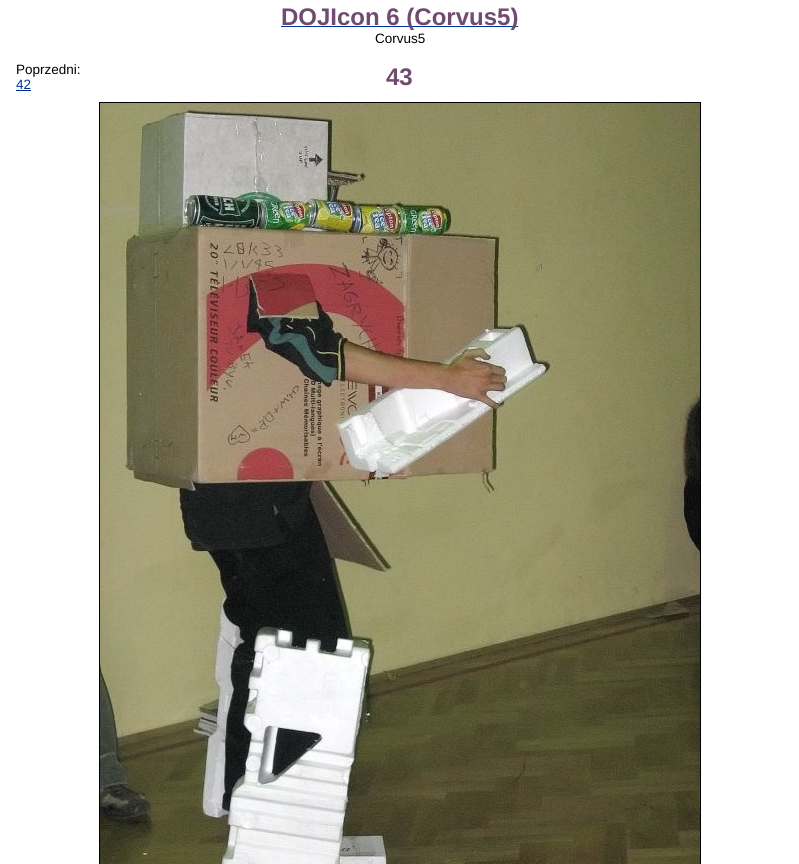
import math
import cairo



def draw_image(context, path, x, y, w, h):
    context.save()
    context.set_source_surface(cairo.ImageSurface.create_from_png(path), x, y)
    context.rectangle(x, y, w, h)
    context.fill()
    context.restore()


def draw(context):
    context.set_source_rgb(1, 1, 1)
    context.paint()
    context.set_source_rgb(0, 51 / 255, 153 / 255)
    context.rectangle(281, 26, 237, 1)
    context.fill()
    context.rectangle(16, 90, 15, 1)
    context.fill()
    context.rectangle(99.5, 102.5, 601, 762)
    context.set_source_rgb(0, 0, 0)
    context.set_line_width(1)
    context.stroke()
    draw_image(context, "images/1.png", 100, 103, 600, 761)
    context.select_font_face("Liberation Sans", cairo.FontSlant.NORMAL, cairo.FontWeight.BOLD)
    context.set_font_size(24)
    context.set_source_rgb(111 / 255, 75 / 255, 111 / 255)
    context.move_to(281, 25)
    context.show_text("DOJIcon 6 (Corvus5)")
    context.select_font_face("Liberation Sans")
    context.set_font_size(13.5)
    context.set_source_rgb(0, 0, 0)
    context.move_to(375, 43)
    context.show_text("Corvus5")
    context.move_to(16, 74)
    context.show_text("Poprzedni:")
    context.set_source_rgb(0, 51 / 255, 153 / 255)
    context.move_to(16, 89)
    context.show_text("42")
    context.select_font_face("Liberation Sans", cairo.FontSlant.NORMAL, cairo.FontWeight.BOLD)
    context.set_font_size(24)
    context.set_source_rgb(111 / 255, 75 / 255, 111 / 255)
    context.move_to(386, 85)
    context.show_text("43")


surface = cairo.ImageSurface(cairo.Format.RGB24, 799, 864)
context = cairo.Context(surface)
options = cairo.FontOptions()
options.set_hint_metrics(cairo.HintMetrics.OFF)
options.set_hint_style(cairo.HintStyle.NONE)
context.set_font_options(options)
context.set_miter_limit(4)
draw(context)
surface.write_to_png("out.png")
